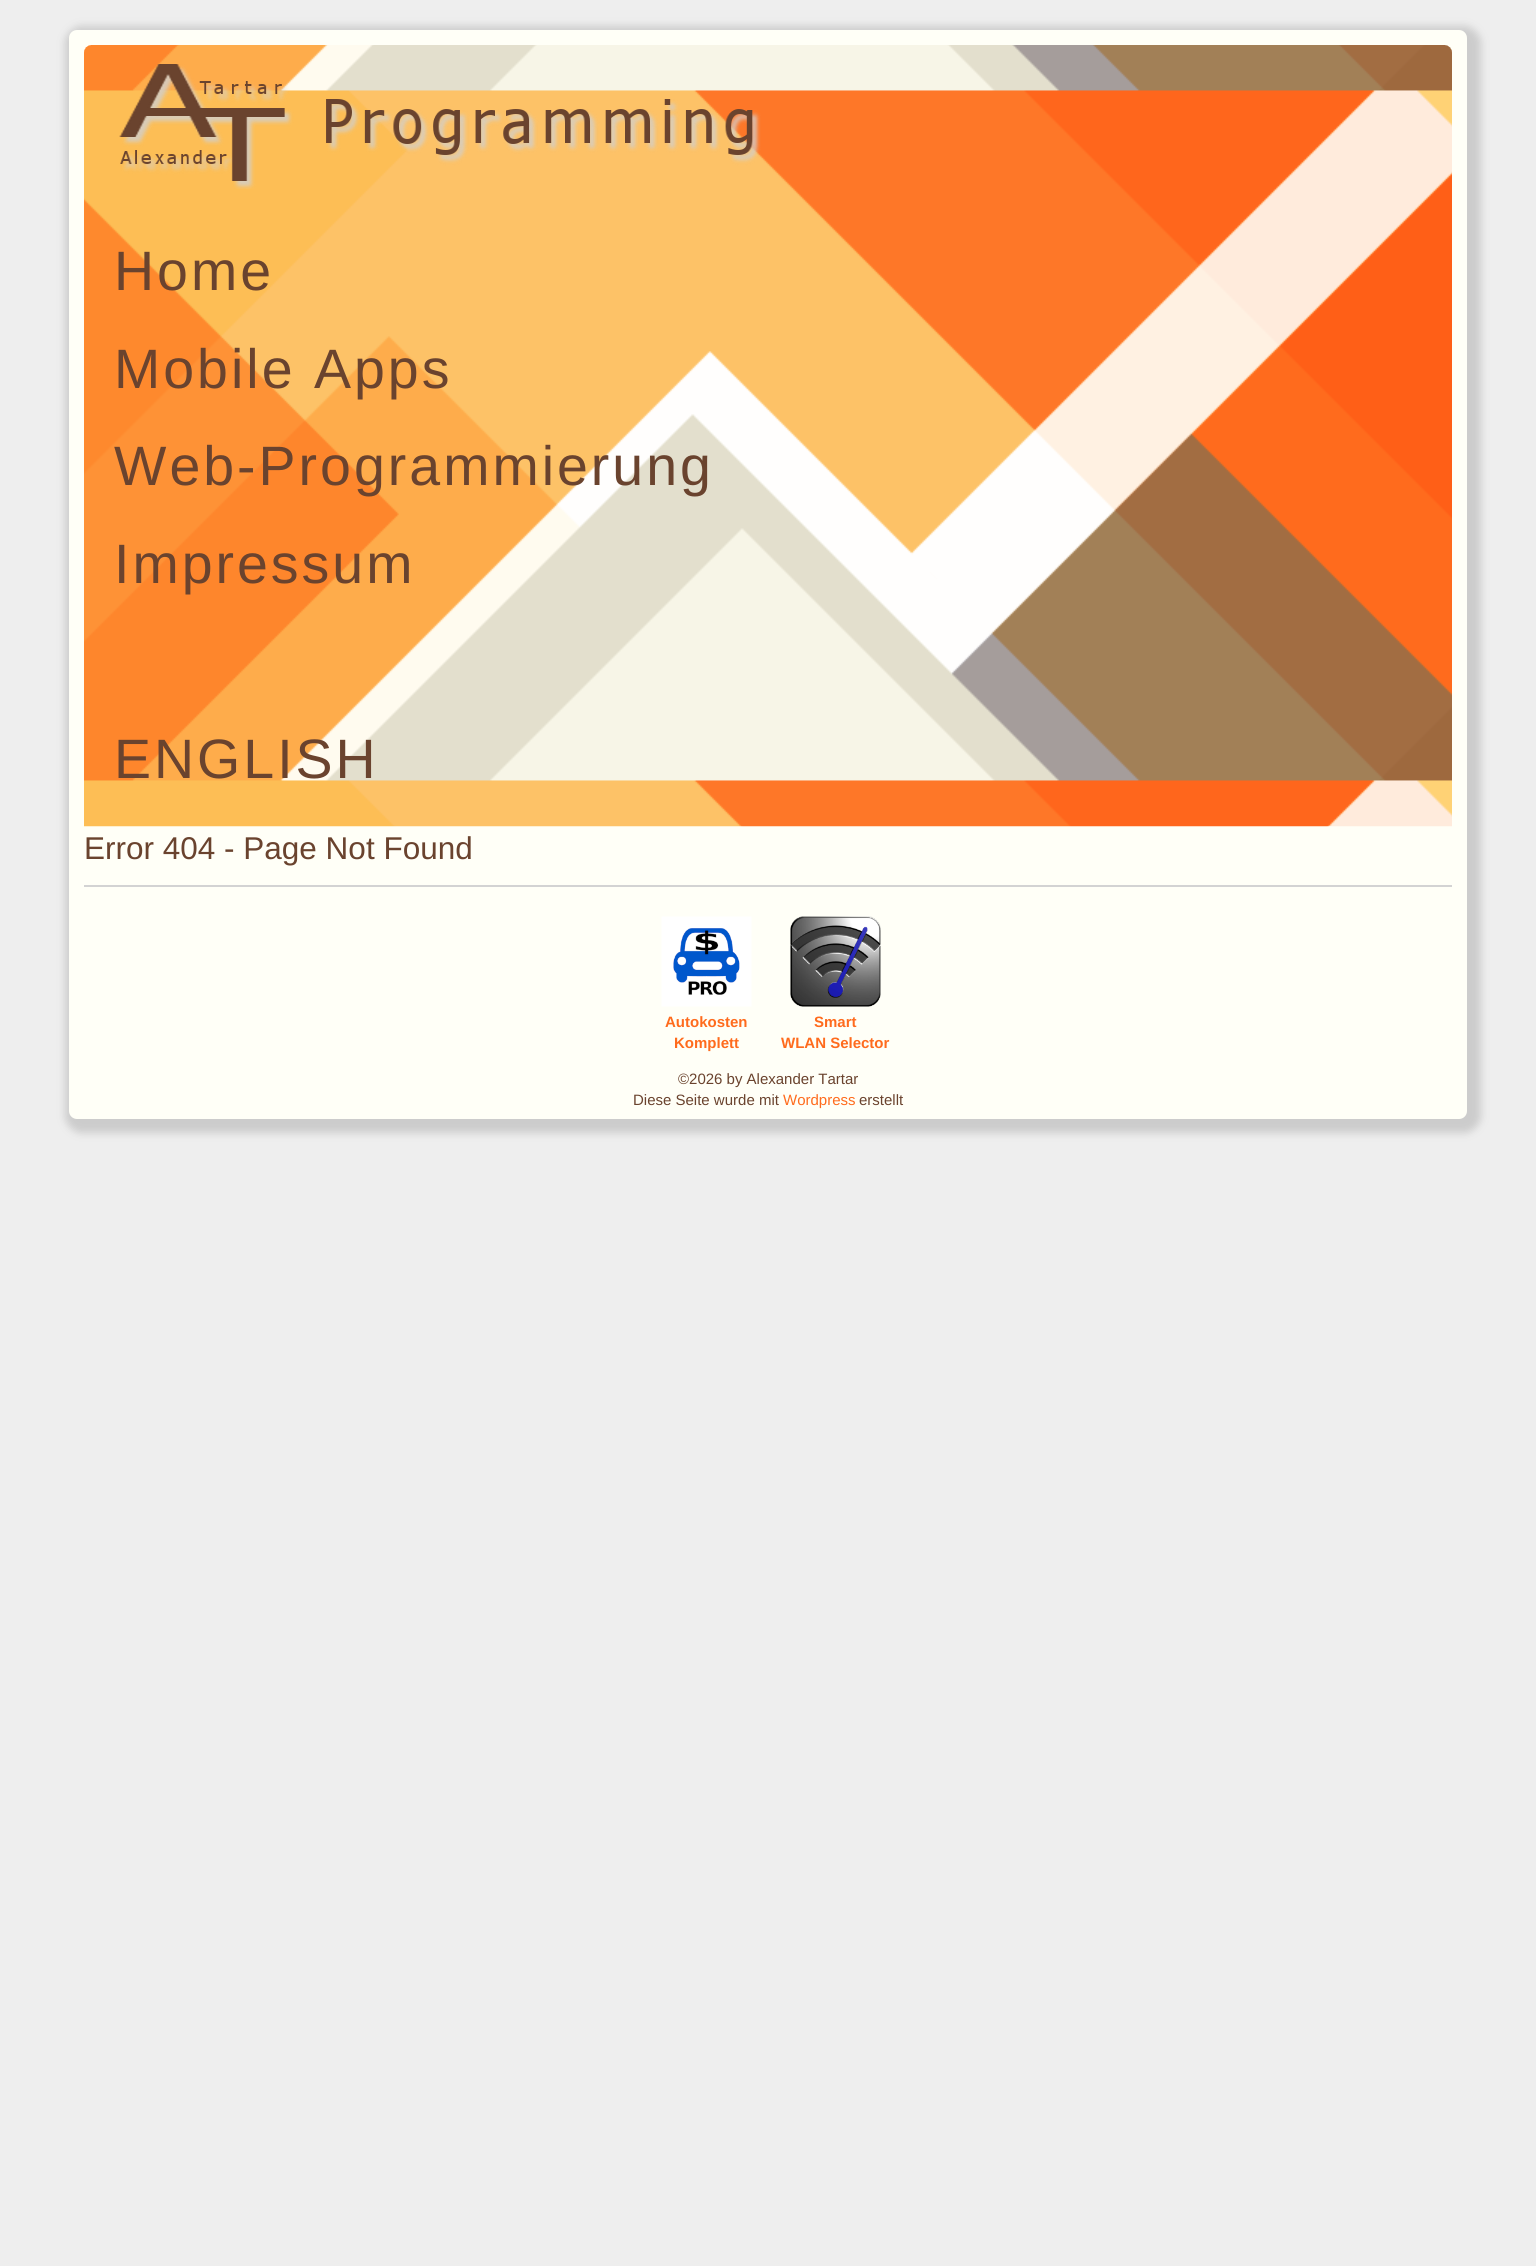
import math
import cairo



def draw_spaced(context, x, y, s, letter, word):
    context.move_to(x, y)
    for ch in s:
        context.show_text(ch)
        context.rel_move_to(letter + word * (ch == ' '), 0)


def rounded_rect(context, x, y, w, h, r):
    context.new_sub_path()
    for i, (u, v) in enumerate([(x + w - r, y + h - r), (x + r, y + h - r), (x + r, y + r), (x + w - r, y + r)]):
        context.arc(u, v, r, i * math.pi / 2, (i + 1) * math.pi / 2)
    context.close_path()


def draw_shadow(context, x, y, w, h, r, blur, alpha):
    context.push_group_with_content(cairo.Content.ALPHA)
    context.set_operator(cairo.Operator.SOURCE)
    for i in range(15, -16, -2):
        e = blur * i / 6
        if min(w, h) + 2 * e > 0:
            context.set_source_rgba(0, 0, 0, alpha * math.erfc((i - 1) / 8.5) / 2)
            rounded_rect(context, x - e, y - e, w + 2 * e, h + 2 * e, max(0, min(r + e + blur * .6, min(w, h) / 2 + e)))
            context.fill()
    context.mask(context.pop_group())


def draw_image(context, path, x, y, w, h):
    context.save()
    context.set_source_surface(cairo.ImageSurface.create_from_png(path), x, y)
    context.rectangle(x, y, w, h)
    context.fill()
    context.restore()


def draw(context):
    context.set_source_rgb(238 / 255, 238 / 255, 238 / 255)
    context.paint()
    context.set_source_rgb(204 / 255, 204 / 255, 204 / 255)
    draw_shadow(context, 65, 26, 1416, 1107, 17, 4, 1)
    context.set_source_rgb(1, 1, 247 / 255)
    rounded_rect(context, 69, 30, 1398, 1089, 8)
    context.fill()
    draw_image(context, "images/1.png", 84, 45, 1368, 782)
    draw_image(context, "images/2.png", 119, 64, 642, 125)
    context.set_source_rgb(211 / 255, 211 / 255, 211 / 255)
    context.rectangle(84, 885, 1368, 2)
    context.fill()
    draw_image(context, "images/3.png", 661, 916, 91, 91)
    draw_image(context, "images/4.png", 790, 916, 91, 91)
    context.select_font_face("Liberation Sans")
    context.set_font_size(55.5)
    context.set_source_rgb(106 / 255, 67 / 255, 46 / 255)
    draw_spaced(context, 114, 290, "Home", 3, 0)
    draw_spaced(context, 114, 388, "Mobile Apps", 3, 0)
    draw_spaced(context, 114, 485, "Web-Programmierung", 3, 0)
    draw_spaced(context, 114, 583, "Impressum", 3, 0)
    draw_spaced(context, 114, 778, "ENGLISH", 3, 0)
    context.set_font_size(31.5)
    context.move_to(84, 859)
    context.show_text("Error 404 - Page Not Found")
    context.select_font_face("Liberation Sans", cairo.FontSlant.NORMAL, cairo.FontWeight.BOLD)
    context.set_font_size(15)
    context.set_source_rgb(1, 107 / 255, 29 / 255)
    context.move_to(665, 1027)
    context.show_text("Autokosten")
    context.move_to(674, 1048)
    context.show_text("Komplett")
    context.move_to(814, 1027)
    context.show_text("Smart")
    context.move_to(781, 1048)
    context.show_text("WLAN Selector")
    context.select_font_face("Liberation Sans")
    context.set_source_rgb(106 / 255, 67 / 255, 46 / 255)
    context.move_to(678, 1084)
    context.show_text("©2026 by Alexander Tartar")
    context.move_to(633, 1105)
    context.show_text("Diese Seite wurde mit")
    context.set_source_rgb(1, 107 / 255, 29 / 255)
    context.move_to(783, 1105)
    context.show_text("Wordpress")
    context.set_source_rgb(106 / 255, 67 / 255, 46 / 255)
    context.move_to(859, 1105)
    context.show_text("erstellt")


surface = cairo.ImageSurface(cairo.Format.RGB24, 1536, 2266)
context = cairo.Context(surface)
options = cairo.FontOptions()
options.set_hint_metrics(cairo.HintMetrics.OFF)
options.set_hint_style(cairo.HintStyle.NONE)
context.set_font_options(options)
context.set_miter_limit(4)
draw(context)
surface.write_to_png("out.png")
